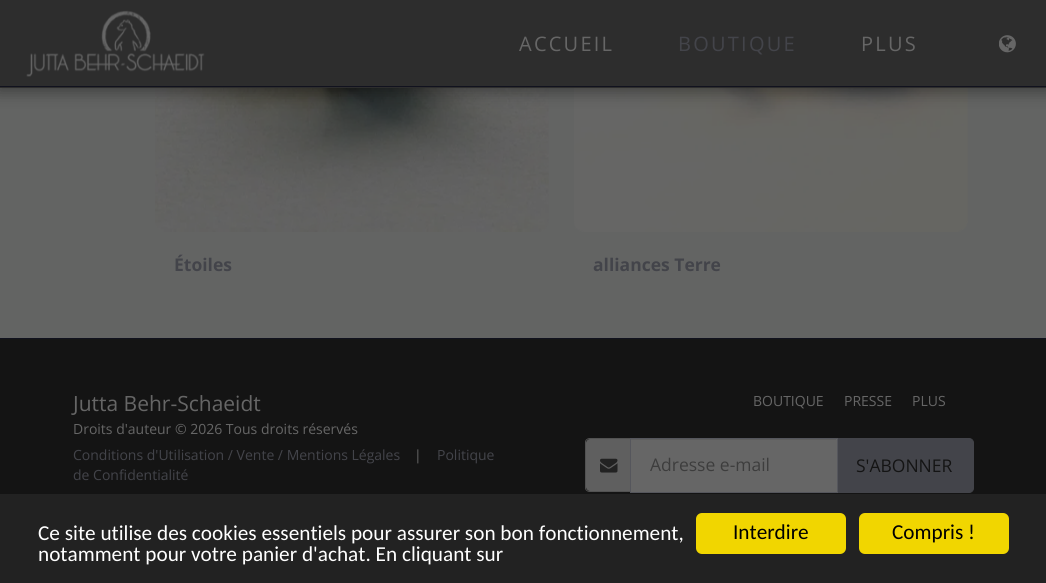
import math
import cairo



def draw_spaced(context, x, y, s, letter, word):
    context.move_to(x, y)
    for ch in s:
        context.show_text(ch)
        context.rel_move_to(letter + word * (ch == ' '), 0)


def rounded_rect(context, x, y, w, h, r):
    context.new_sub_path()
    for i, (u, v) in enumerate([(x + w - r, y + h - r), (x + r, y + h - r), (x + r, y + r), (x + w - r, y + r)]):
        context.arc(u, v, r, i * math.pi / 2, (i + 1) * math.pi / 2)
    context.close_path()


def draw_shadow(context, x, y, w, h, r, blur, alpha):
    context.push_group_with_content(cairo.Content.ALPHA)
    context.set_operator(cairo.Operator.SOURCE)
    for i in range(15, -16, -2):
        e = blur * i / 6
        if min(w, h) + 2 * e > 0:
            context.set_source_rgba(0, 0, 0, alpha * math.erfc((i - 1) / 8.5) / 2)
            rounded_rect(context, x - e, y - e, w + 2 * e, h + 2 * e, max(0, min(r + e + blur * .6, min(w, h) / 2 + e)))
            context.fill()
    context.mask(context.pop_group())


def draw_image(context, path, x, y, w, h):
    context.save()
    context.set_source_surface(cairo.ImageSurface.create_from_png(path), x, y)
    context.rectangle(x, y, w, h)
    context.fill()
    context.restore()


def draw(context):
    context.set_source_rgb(99 / 255, 100 / 255, 99 / 255)
    context.paint()
    draw_image(context, "images/3.png", 155, 88, 394, 144)
    draw_image(context, "images/4.png", 574, 88, 394, 144)
    context.set_source_rgb(0, 0, 0)
    draw_shadow(context, -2, 0, 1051, 93, 0, 7.5, 0.35)
    context.set_source_rgb(45 / 255, 45 / 255, 45 / 255)
    context.rectangle(0, 0, 1046, 88)
    context.fill()
    context.set_source_rgb(17 / 255, 18 / 255, 30 / 255)
    context.rectangle(0, 86, 1046, 1)
    context.fill()
    draw_image(context, "images/1.png", 26, 10, 179, 67)
    draw_image(context, "images/2.png", 999, 35, 17, 18)
    context.set_source_rgb(20 / 255, 20 / 255, 20 / 255)
    context.rectangle(0, 339, 1046, 155)
    context.fill()
    context.set_source_rgb(17 / 255, 18 / 255, 30 / 255)
    context.rectangle(0, 338, 1046, 1)
    context.fill()
    context.set_source_rgb(95 / 255, 95 / 255, 95 / 255)
    context.new_path()
    context.move_to(590, 439)
    context.line_to(630, 439)
    context.line_to(630, 491)
    context.line_to(590, 491)
    context.curve_to(588, 491, 586, 489, 586, 487)
    context.line_to(586, 443)
    context.curve_to(586, 441, 588, 439, 590, 439)
    context.close_path()
    context.fill()
    context.set_source_rgb(82 / 255, 82 / 255, 82 / 255)
    context.set_fill_rule(cairo.FillRule.EVEN_ODD)
    context.new_path()
    context.move_to(590, 438)
    context.line_to(630, 438)
    context.line_to(630, 492)
    context.line_to(590, 492)
    context.curve_to(587, 492, 585, 490, 585, 488)
    context.line_to(585, 442)
    context.curve_to(585, 440, 587, 438, 590, 438)
    context.close_path()
    context.move_to(590, 439)
    context.line_to(630, 439)
    context.line_to(630, 491)
    context.line_to(590, 491)
    context.curve_to(588, 491, 586, 490, 586, 488)
    context.line_to(586, 442)
    context.curve_to(586, 440, 588, 439, 590, 439)
    context.close_path()
    context.fill()
    draw_image(context, "images/5.png", 600, 458, 18, 15)
    context.set_source_rgb(67 / 255, 68 / 255, 74 / 255)
    context.new_path()
    context.move_to(836.5, 438.5)
    context.line_to(969, 438.5)
    context.curve_to(971.5, 438.5, 973.5, 440.5, 973.5, 443)
    context.line_to(973.5, 488)
    context.curve_to(973.5, 490.5, 971.5, 492.5, 969, 492.5)
    context.line_to(836.5, 492.5)
    context.close_path()
    context.fill_preserve()
    context.set_line_width(1)
    context.stroke()
    context.set_source_rgb(102 / 255, 102 / 255, 102 / 255)
    context.rectangle(631, 439, 206, 53)
    context.fill()
    context.set_source_rgb(94 / 255, 94 / 255, 94 / 255)
    context.rectangle(631, 439, 205, 1)
    context.fill()
    context.rectangle(630.5, 438.5, 207, 54)
    context.set_source_rgb(85 / 255, 86 / 255, 92 / 255)
    context.stroke()
    context.set_source_rgb(34 / 255, 34 / 255, 34 / 255)
    context.rectangle(0, 494, 1046, 89)
    context.fill()
    context.set_source_rgb(241 / 255, 214 / 255, 0)
    rounded_rect(context, 696, 513, 150, 41, 6)
    context.fill()
    rounded_rect(context, 859, 513, 150, 41, 6)
    context.fill()
    context.select_font_face("Open Sans")
    context.set_font_size(20)
    context.set_source_rgb(102 / 255, 102 / 255, 102 / 255)
    draw_spaced(context, 519, 51, "ACCUEIL", 2.25, 0)
    context.set_source_rgb(67 / 255, 68 / 255, 74 / 255)
    draw_spaced(context, 678, 51, "BOUTIQUE", 2.25, 0)
    context.set_source_rgb(102 / 255, 102 / 255, 102 / 255)
    draw_spaced(context, 861, 51, "PLUS", 2.25, 0)
    context.select_font_face("Open Sans", cairo.FontSlant.NORMAL, cairo.FontWeight.BOLD)
    context.set_font_size(17.5)
    context.set_source_rgb(67 / 255, 68 / 255, 74 / 255)
    context.move_to(174, 271)
    context.show_text("Étoiles")
    context.move_to(593, 271)
    context.show_text("alliances Terre")
    context.select_font_face("Open Sans")
    context.set_font_size(21)
    context.set_source_rgb(102 / 255, 102 / 255, 102 / 255)
    context.move_to(73, 411)
    context.show_text("Jutta Behr-Schaeidt")
    context.set_font_size(14)
    context.move_to(73, 434)
    context.show_text("Droits d'auteur © 2026 Tous droits réservés")
    context.set_source_rgb(67 / 255, 68 / 255, 74 / 255)
    context.move_to(73, 460)
    context.show_text("Conditions d'Utilisation / Vente / Mentions Légales")
    context.set_source_rgb(102 / 255, 102 / 255, 102 / 255)
    context.move_to(414, 460)
    context.show_text("|")
    context.set_source_rgb(67 / 255, 68 / 255, 74 / 255)
    context.move_to(437, 460)
    context.show_text("Politique")
    context.move_to(73, 480)
    context.show_text("de Confidentialité")
    context.set_source_rgb(102 / 255, 102 / 255, 102 / 255)
    context.move_to(753, 406)
    context.show_text("BOUTIQUE")
    context.move_to(844, 406)
    context.show_text("PRESSE")
    context.move_to(912, 406)
    context.show_text("PLUS")
    context.set_font_size(17.5)
    context.set_source_rgb(61 / 255, 61 / 255, 61 / 255)
    context.move_to(650, 471)
    context.show_text("Adresse e-mail")
    context.set_source_rgb(20 / 255, 20 / 255, 20 / 255)
    context.move_to(856, 472)
    context.show_text("S'ABONNER")
    context.select_font_face("Carlito")
    context.set_font_size(21.25)
    context.set_source_rgb(1, 1, 1)
    context.move_to(38, 540)
    context.show_text("Ce site utilise des cookies essentiels pour assurer son bon fonctionnement,")
    context.move_to(38, 561)
    context.show_text("notamment pour votre panier d'achat. En cliquant sur")
    context.set_source_rgb(0, 0, 0)
    context.move_to(733, 539)
    context.show_text("Interdire")
    context.move_to(892, 539)
    context.show_text("Compris !")


surface = cairo.ImageSurface(cairo.Format.RGB24, 1046, 583)
context = cairo.Context(surface)
options = cairo.FontOptions()
options.set_hint_metrics(cairo.HintMetrics.OFF)
options.set_hint_style(cairo.HintStyle.NONE)
context.set_font_options(options)
context.set_miter_limit(4)
draw(context)
surface.write_to_png("out.png")
